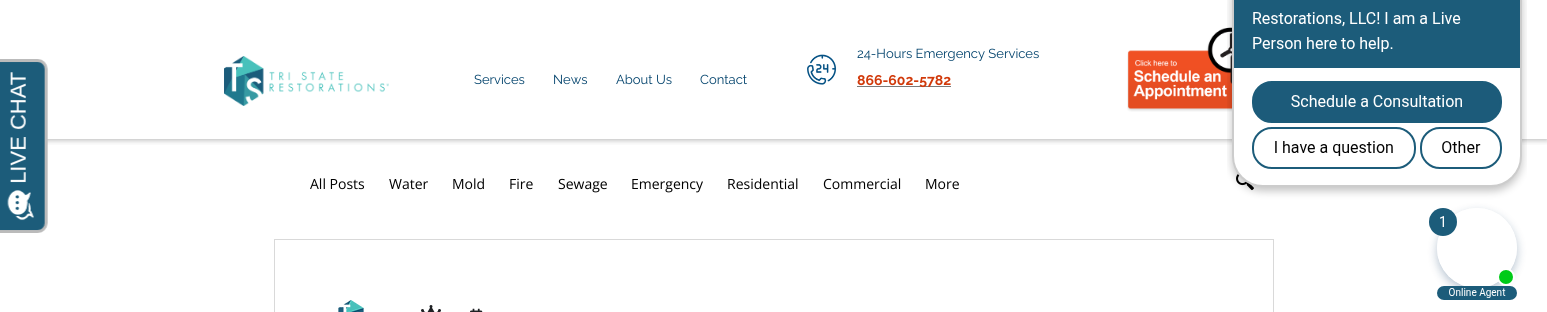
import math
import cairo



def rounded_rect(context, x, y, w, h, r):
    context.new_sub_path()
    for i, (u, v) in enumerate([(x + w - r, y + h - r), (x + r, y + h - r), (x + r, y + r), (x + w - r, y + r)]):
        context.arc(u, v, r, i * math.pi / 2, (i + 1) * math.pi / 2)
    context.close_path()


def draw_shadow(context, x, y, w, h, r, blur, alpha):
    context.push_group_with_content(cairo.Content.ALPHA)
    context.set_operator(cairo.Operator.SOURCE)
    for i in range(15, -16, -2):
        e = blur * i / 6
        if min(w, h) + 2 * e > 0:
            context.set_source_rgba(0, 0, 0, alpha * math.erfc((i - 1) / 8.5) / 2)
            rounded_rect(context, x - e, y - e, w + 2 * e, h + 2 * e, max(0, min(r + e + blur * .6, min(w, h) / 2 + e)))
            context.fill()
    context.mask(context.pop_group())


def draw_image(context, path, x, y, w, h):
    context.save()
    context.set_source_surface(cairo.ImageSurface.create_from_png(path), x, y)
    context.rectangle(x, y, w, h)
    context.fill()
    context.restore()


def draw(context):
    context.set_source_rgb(1, 1, 1)
    context.paint()
    context.save()
    context.rectangle(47, 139, 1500, 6)
    context.clip()
    context.set_source_rgb(0, 0, 0)
    draw_shadow(context, 0, 0, 1547, 139, 0, 3.5, 0.38)
    context.restore()
    draw_image(context, "images/1.png", 0, 59, 48, 174)
    draw_image(context, "images/2.png", 224, 56, 165, 50)
    draw_image(context, "images/3.png", 807, 54, 30, 31)
    context.set_source_rgb(122 / 255, 122 / 255, 122 / 255)
    context.rectangle(857, 86, 94, 1)
    context.fill()
    draw_image(context, "images/4.png", 1127, 27, 105, 85)
    draw_image(context, "images/5.png", 1236, 174, 18, 17)
    context.rectangle(274.5, 239.5, 999, 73)
    context.set_source_rgb(217 / 255, 217 / 255, 217 / 255)
    context.set_line_width(1)
    context.stroke()
    draw_image(context, "images/6.png", 338, 300, 26, 12)
    draw_image(context, "images/7.png", 421, 305, 20, 7)
    draw_image(context, "images/8.png", 470, 308, 13, 4)
    draw_image(context, "images/9.png", 1227, 0, 300, 300)
    context.select_font_face("Raleway")
    context.set_font_size(13)
    context.set_source_rgb(0, 65 / 255, 107 / 255)
    context.move_to(474, 84)
    context.show_text("Services")
    context.move_to(553, 84)
    context.show_text("News")
    context.move_to(616, 84)
    context.show_text("About Us")
    context.move_to(700, 84)
    context.show_text("Contact")
    context.move_to(857, 58)
    context.show_text("24-Hours Emergency Services")
    context.select_font_face("Raleway", cairo.FontSlant.NORMAL, cairo.FontWeight.BOLD)
    context.set_font_size(14)
    context.set_source_rgb(209 / 255, 57 / 255, 10 / 255)
    context.move_to(857, 85)
    context.show_text("866-602-5782")
    context.select_font_face("Open Sans")
    context.set_source_rgb(0, 0, 0)
    context.move_to(310, 189)
    context.show_text("All Posts")
    context.move_to(389, 189)
    context.show_text("Water")
    context.move_to(452, 189)
    context.show_text("Mold")
    context.move_to(509, 189)
    context.show_text("Fire")
    context.move_to(558, 189)
    context.show_text("Sewage")
    context.move_to(631, 189)
    context.show_text("Emergency")
    context.move_to(727, 189)
    context.show_text("Residential")
    context.move_to(823, 189)
    context.show_text("Commercial")
    context.move_to(925, 189)
    context.show_text("More")


surface = cairo.ImageSurface(cairo.Format.RGB24, 1547, 312)
context = cairo.Context(surface)
options = cairo.FontOptions()
options.set_hint_metrics(cairo.HintMetrics.OFF)
options.set_hint_style(cairo.HintStyle.NONE)
context.set_font_options(options)
context.set_miter_limit(4)
draw(context)
surface.write_to_png("out.png")
